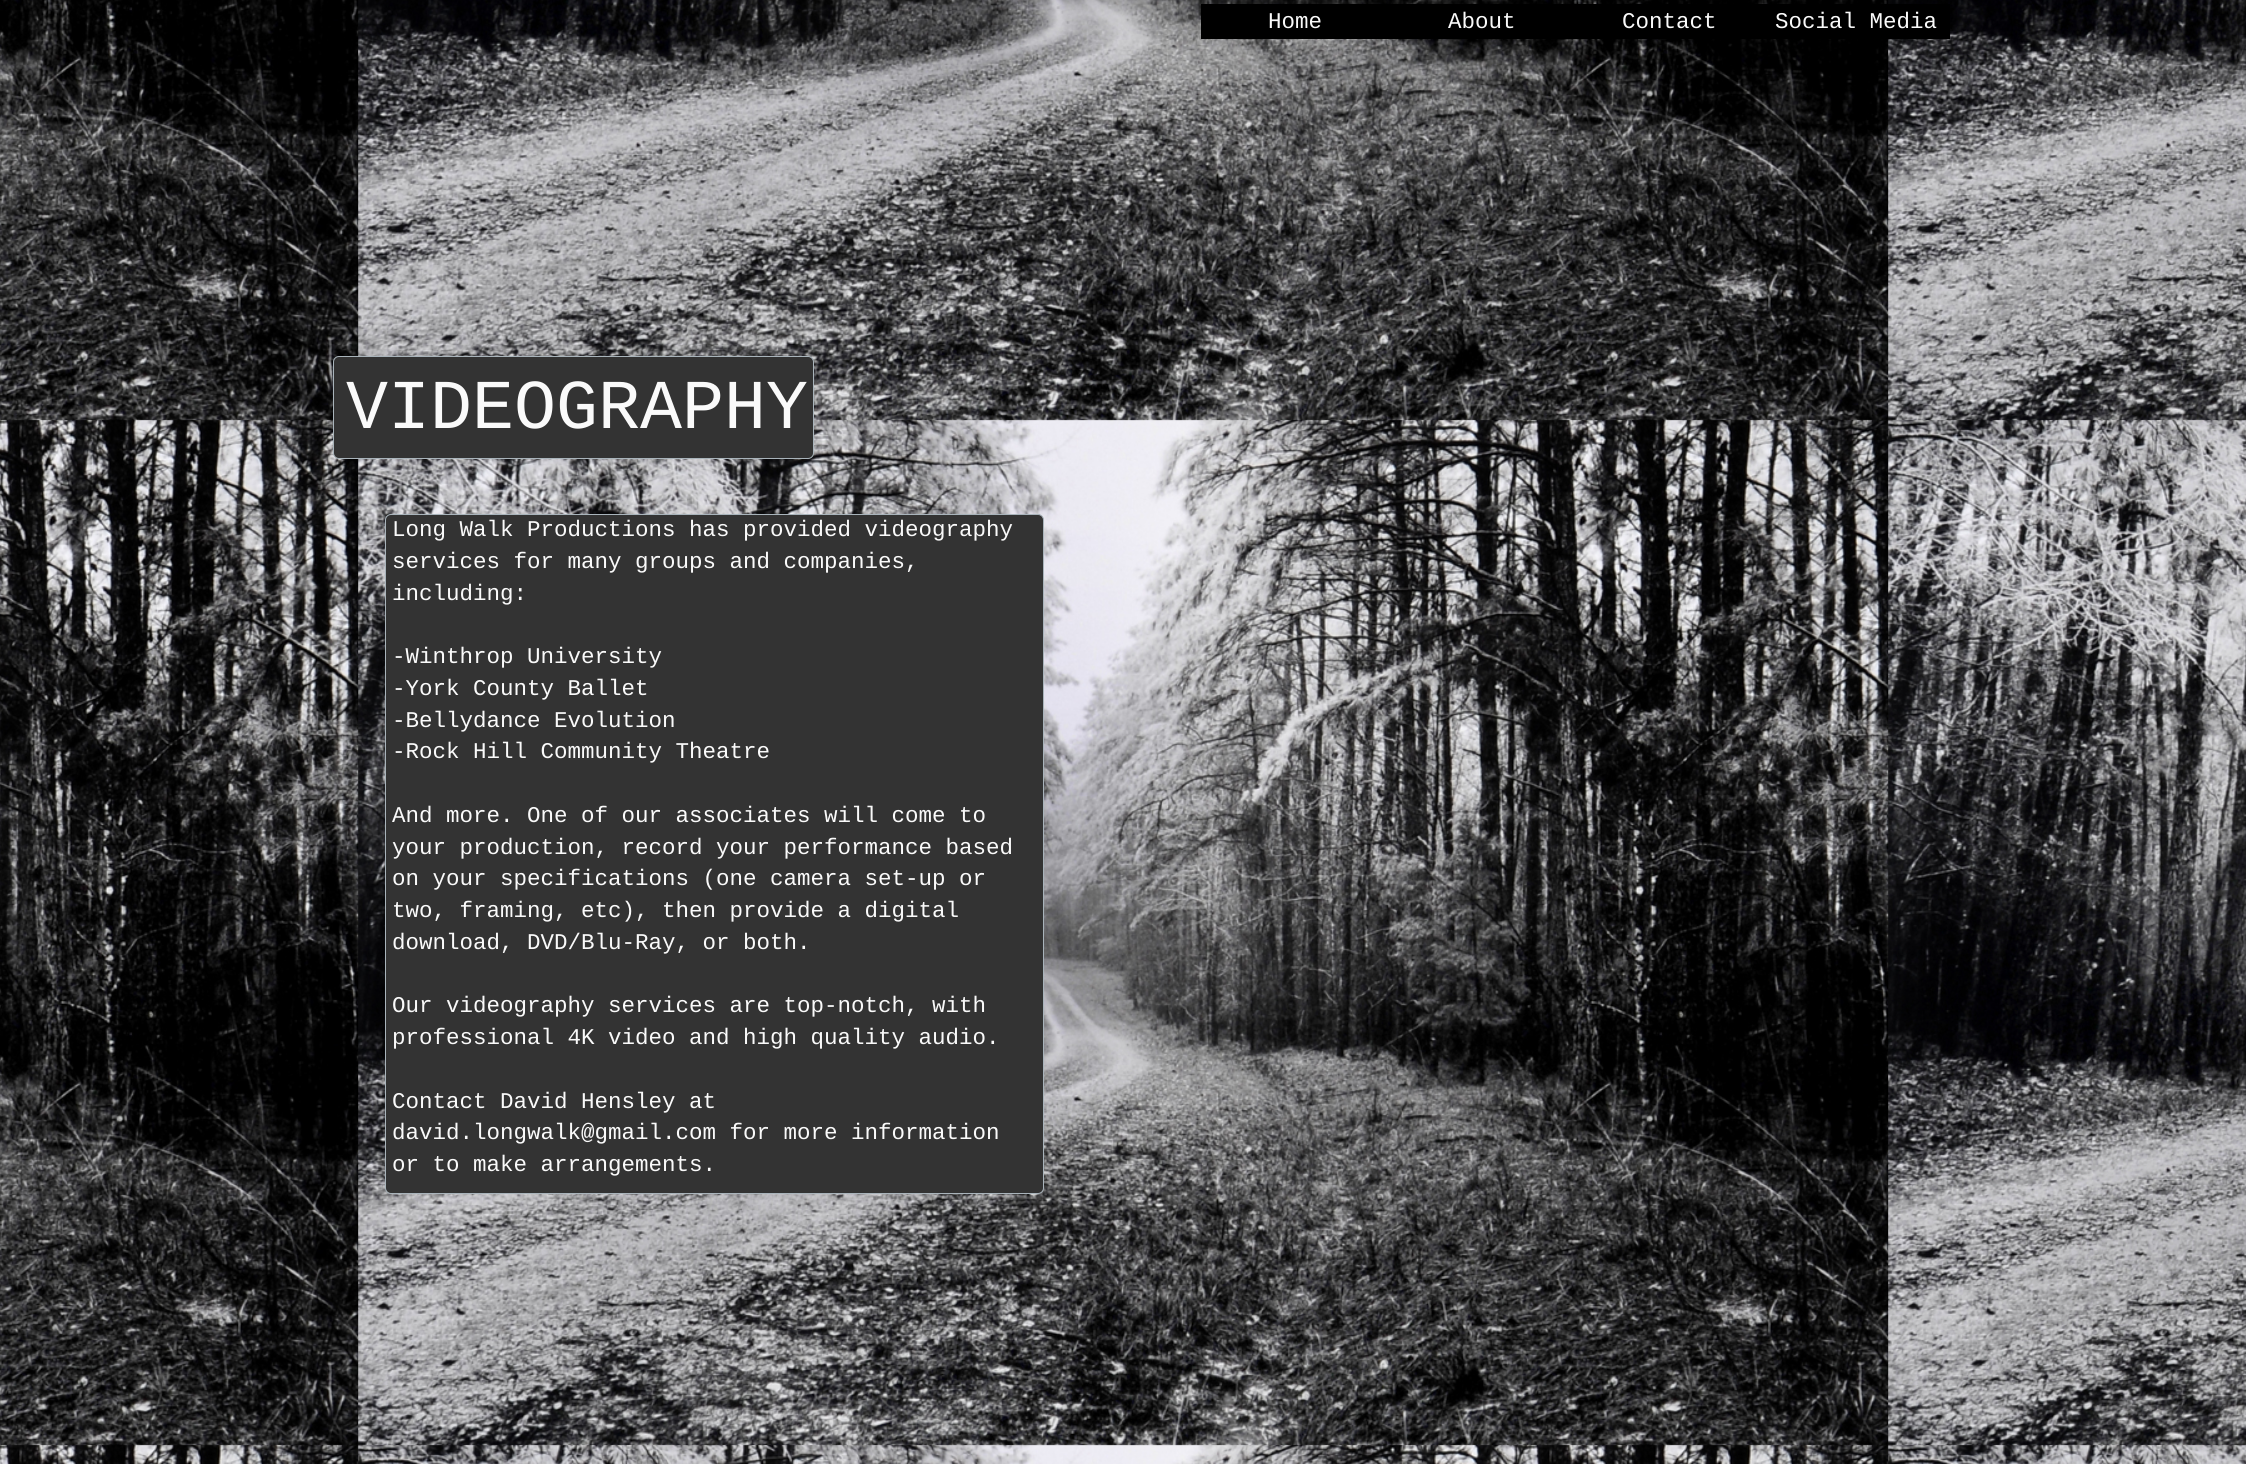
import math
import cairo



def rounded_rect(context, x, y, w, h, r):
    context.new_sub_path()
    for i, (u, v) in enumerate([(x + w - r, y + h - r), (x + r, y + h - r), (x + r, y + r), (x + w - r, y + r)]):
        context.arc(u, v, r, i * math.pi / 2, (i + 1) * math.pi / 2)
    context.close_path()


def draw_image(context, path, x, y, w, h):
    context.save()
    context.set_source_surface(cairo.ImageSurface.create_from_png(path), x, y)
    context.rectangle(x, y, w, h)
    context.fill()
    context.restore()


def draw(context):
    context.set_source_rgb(1, 1, 1)
    context.paint()
    draw_image(context, "images/1.png", 0, 0, 2246, 1464)
    context.set_source_rgb(0, 0, 0)
    context.rectangle(1201, 4, 749, 35)
    context.fill()
    context.set_source_rgb(51 / 255, 51 / 255, 51 / 255)
    rounded_rect(context, 333.5, 356.5, 480, 102, 5.5)
    context.fill_preserve()
    context.set_source_rgb(169 / 255, 180 / 255, 187 / 255)
    context.set_line_width(1)
    context.stroke()
    context.set_source_rgb(51 / 255, 51 / 255, 51 / 255)
    rounded_rect(context, 385.5, 514.5, 658, 679, 5.5)
    context.fill_preserve()
    context.set_source_rgb(169 / 255, 180 / 255, 187 / 255)
    context.stroke()
    context.select_font_face("Liberation Mono")
    context.set_font_size(22.5)
    context.set_source_rgb(250 / 255, 250 / 255, 250 / 255)
    context.move_to(1268, 28)
    context.show_text("Home")
    context.move_to(1448, 28)
    context.show_text("About")
    context.move_to(1622, 28)
    context.show_text("Contact")
    context.move_to(1775, 28)
    context.show_text("Social Media")
    context.set_font_size(70)
    context.move_to(346, 428)
    context.show_text("VIDEOGRAPHY")
    context.set_font_size(22.5)
    context.move_to(392, 536)
    context.show_text("Long Walk Productions has provided videography")
    context.move_to(392, 568)
    context.show_text("services for many groups and companies,")
    context.move_to(392, 600)
    context.show_text("including:")
    context.move_to(392, 663)
    context.show_text("-Winthrop University")
    context.move_to(392, 695)
    context.show_text("-York County Ballet")
    context.move_to(392, 727)
    context.show_text("-Bellydance Evolution")
    context.move_to(392, 758)
    context.show_text("-Rock Hill Community Theatre")
    context.move_to(392, 822)
    context.show_text("And more. One of our associates will come to")
    context.move_to(392, 854)
    context.show_text("your production, record your performance based")
    context.move_to(392, 885)
    context.show_text("on your specifications (one camera set-up or")
    context.move_to(392, 917)
    context.show_text("two, framing, etc), then provide a digital")
    context.move_to(392, 949)
    context.show_text("download, DVD/Blu-Ray, or both.")
    context.move_to(392, 1012)
    context.show_text("Our videography services are top-notch, with")
    context.move_to(392, 1044)
    context.show_text("professional 4K video and high quality audio.")
    context.move_to(392, 1108)
    context.show_text("Contact David Hensley at")
    context.move_to(392, 1139)
    context.show_text("david.longwalk@gmail.com for more information")
    context.move_to(392, 1171)
    context.show_text("or to make arrangements.")


surface = cairo.ImageSurface(cairo.Format.RGB24, 2246, 1464)
context = cairo.Context(surface)
options = cairo.FontOptions()
options.set_hint_metrics(cairo.HintMetrics.OFF)
options.set_hint_style(cairo.HintStyle.NONE)
context.set_font_options(options)
context.set_miter_limit(4)
draw(context)
surface.write_to_png("out.png")
